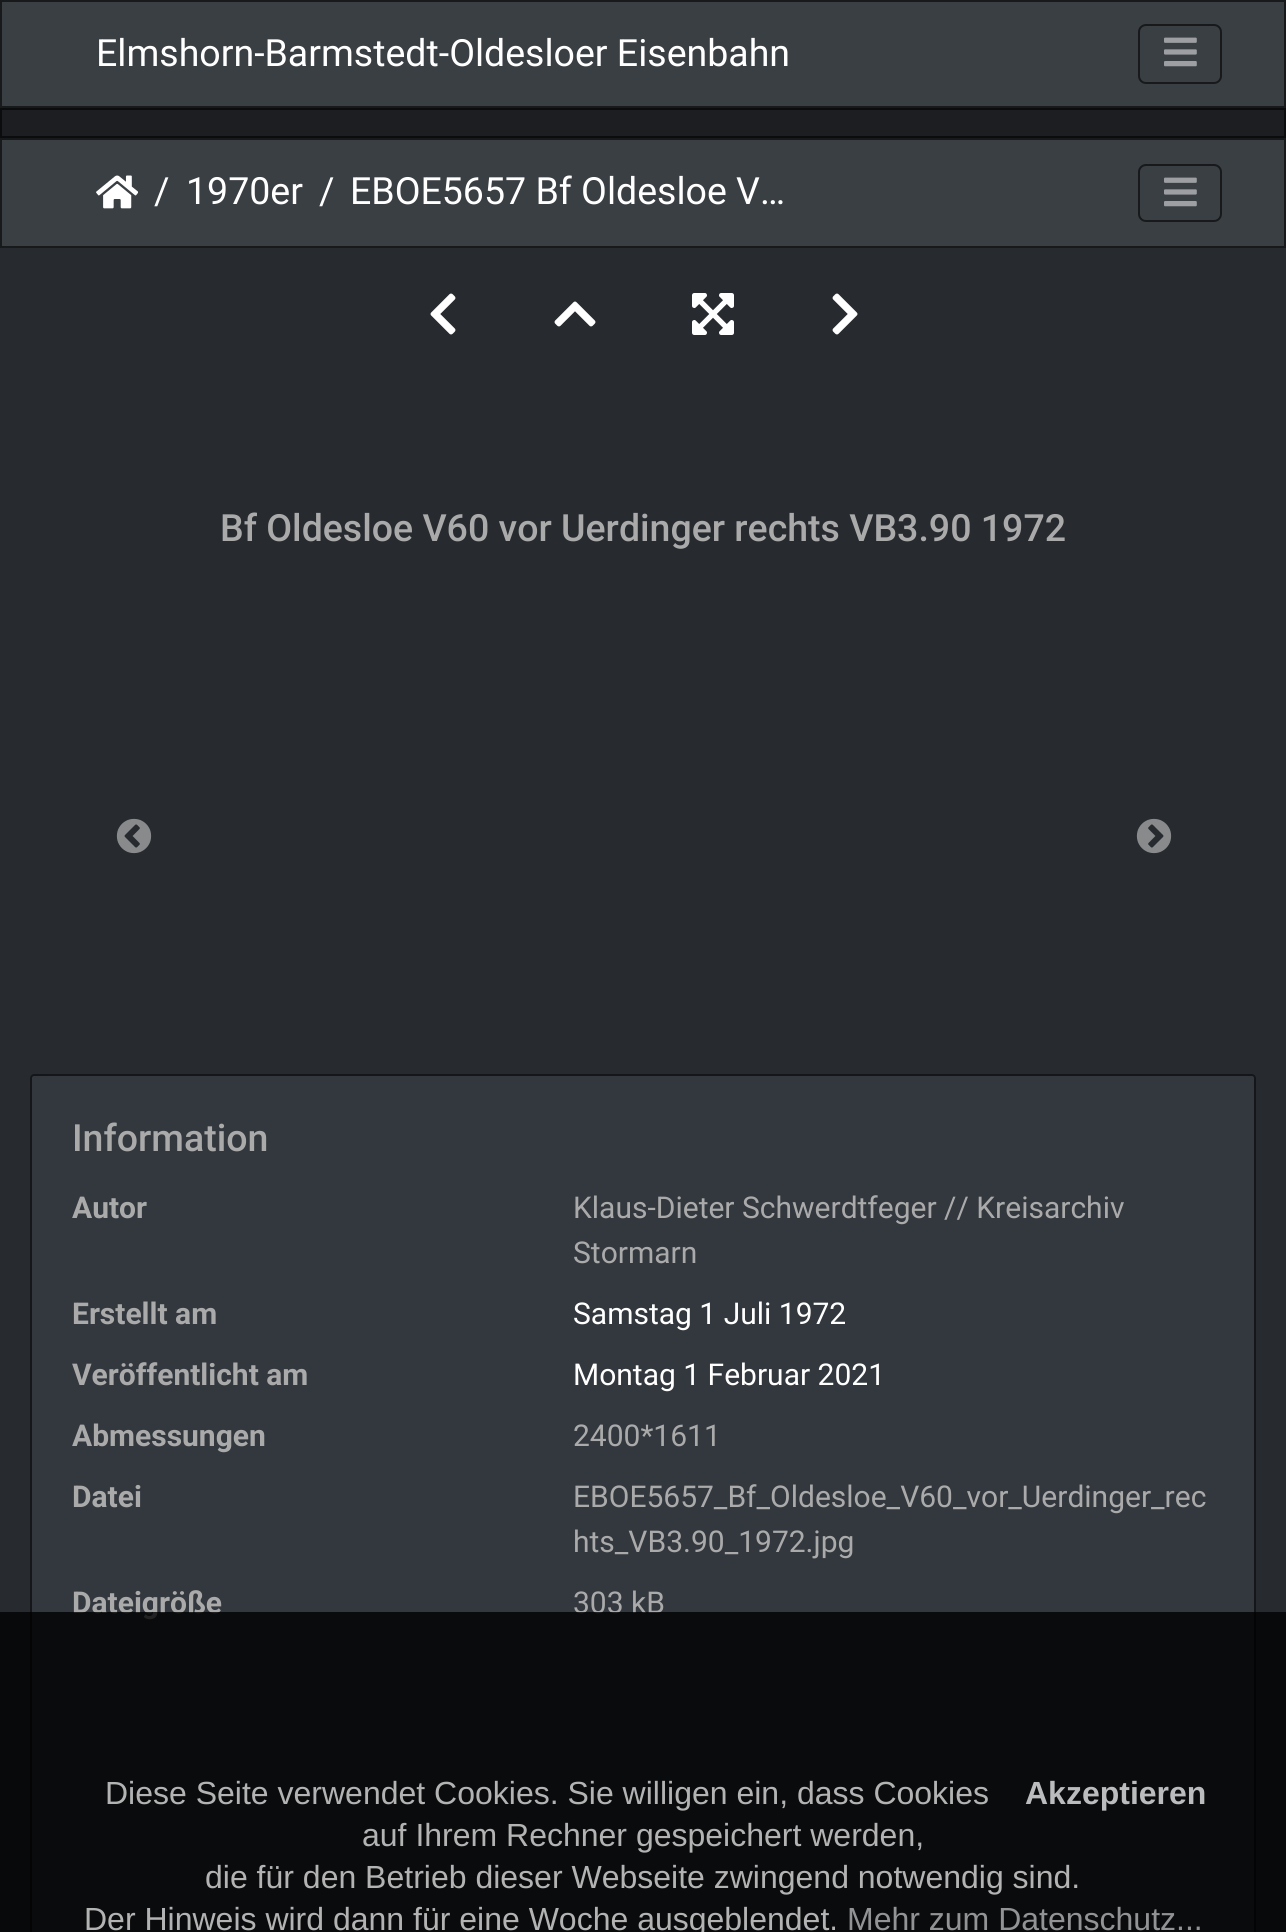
import math
import cairo



def rounded_rect(context, x, y, w, h, r):
    context.new_sub_path()
    for i, (u, v) in enumerate([(x + w - r, y + h - r), (x + r, y + h - r), (x + r, y + r), (x + w - r, y + r)]):
        context.arc(u, v, r, i * math.pi / 2, (i + 1) * math.pi / 2)
    context.close_path()


def draw_image(context, path, x, y, w, h):
    context.save()
    context.set_source_surface(cairo.ImageSurface.create_from_png(path), x, y)
    context.rectangle(x, y, w, h)
    context.fill()
    context.restore()


def draw(context):
    context.set_source_rgb(39 / 255, 43 / 255, 48 / 255)
    context.paint()
    context.set_source_rgb(58 / 255, 63 / 255, 68 / 255)
    context.rectangle(1, 1, 1284, 106)
    context.fill_preserve()
    context.set_source_rgb(23 / 255, 25 / 255, 27 / 255)
    context.stroke()
    rounded_rect(context, 1139, 25, 82, 58, 7)
    context.stroke()
    draw_image(context, "images/1.png", 1164, 37, 33, 30)
    context.set_source_rgb(28 / 255, 30 / 255, 34 / 255)
    context.rectangle(1, 109, 1284, 28)
    context.fill_preserve()
    context.set_source_rgb(11 / 255, 12 / 255, 14 / 255)
    context.stroke()
    context.set_source_rgb(58 / 255, 63 / 255, 68 / 255)
    context.rectangle(1, 139, 1284, 108)
    context.fill_preserve()
    context.set_source_rgb(23 / 255, 25 / 255, 27 / 255)
    context.stroke()
    draw_image(context, "images/2.png", 96, 175, 42, 34)
    rounded_rect(context, 1139, 165, 82, 56, 7)
    context.stroke()
    draw_image(context, "images/1.png", 1164, 177, 33, 30)
    draw_image(context, "images/3.png", 430, 293, 26, 42)
    draw_image(context, "images/4.png", 554, 301, 42, 26)
    draw_image(context, "images/5.png", 692, 293, 42, 42)
    draw_image(context, "images/6.png", 832, 293, 26, 42)
    draw_image(context, "images/7.png", 116, 818, 36, 36)
    draw_image(context, "images/8.png", 1136, 818, 36, 36)
    context.set_source_rgb(50 / 255, 56 / 255, 62 / 255)
    rounded_rect(context, 30, 1074, 1226, 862, 4)
    context.fill()
    rounded_rect(context, 31, 1075, 1224, 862, 3)
    context.set_source_rgba(0, 0, 0, 0.6)
    context.stroke()
    context.select_font_face("Roboto")
    context.set_font_size(37.5)
    context.set_source_rgb(1, 1, 1)
    context.move_to(96, 66)
    context.show_text("Elmshorn-Barmstedt-Oldesloer Eisenbahn")
    context.move_to(154, 204)
    context.show_text("/")
    context.move_to(186, 204)
    context.show_text("1970er")
    context.move_to(319, 204)
    context.show_text("/")
    context.move_to(350, 204)
    context.show_text("EBOE5657 Bf Oldesloe V…")
    context.select_font_face("Roboto Medium")
    context.set_source_rgb(170 / 255, 170 / 255, 170 / 255)
    context.move_to(220, 541)
    context.show_text("Bf Oldesloe V60 vor Uerdinger rechts VB3.90 1972")
    context.move_to(72, 1151)
    context.show_text("Information")
    context.select_font_face("Roboto", cairo.FontSlant.NORMAL, cairo.FontWeight.BOLD)
    context.set_font_size(30)
    context.move_to(72, 1218)
    context.show_text("Autor")
    context.select_font_face("Roboto")
    context.move_to(573, 1218)
    context.show_text("Klaus-Dieter Schwerdtfeger // Kreisarchiv")
    context.move_to(573, 1263)
    context.show_text("Stormarn")
    context.select_font_face("Roboto", cairo.FontSlant.NORMAL, cairo.FontWeight.BOLD)
    context.move_to(72, 1324)
    context.show_text("Erstellt am")
    context.select_font_face("Roboto")
    context.set_source_rgb(1, 1, 1)
    context.move_to(573, 1324)
    context.show_text("Samstag 1 Juli 1972")
    context.select_font_face("Roboto", cairo.FontSlant.NORMAL, cairo.FontWeight.BOLD)
    context.set_source_rgb(170 / 255, 170 / 255, 170 / 255)
    context.move_to(72, 1385)
    context.show_text("Veröffentlicht am")
    context.select_font_face("Roboto")
    context.set_source_rgb(1, 1, 1)
    context.move_to(573, 1385)
    context.show_text("Montag 1 Februar 2021")
    context.select_font_face("Roboto", cairo.FontSlant.NORMAL, cairo.FontWeight.BOLD)
    context.set_source_rgb(170 / 255, 170 / 255, 170 / 255)
    context.move_to(72, 1446)
    context.show_text("Abmessungen")
    context.select_font_face("Roboto")
    context.move_to(573, 1446)
    context.show_text("2400*1611")
    context.select_font_face("Roboto", cairo.FontSlant.NORMAL, cairo.FontWeight.BOLD)
    context.move_to(72, 1507)
    context.show_text("Datei")
    context.select_font_face("Roboto")
    context.move_to(573, 1507)
    context.show_text("EBOE5657_Bf_Oldesloe_V60_vor_Uerdinger_rec")
    context.move_to(573, 1552)
    context.show_text("hts_VB3.90_1972.jpg")
    context.select_font_face("Roboto", cairo.FontSlant.NORMAL, cairo.FontWeight.BOLD)
    context.move_to(72, 1613)
    context.show_text("Dateigröße")
    context.select_font_face("Roboto")
    context.move_to(573, 1613)
    context.show_text("303 kB")
    context.set_source_rgba(0, 0, 0, 0.8)
    context.rectangle(0, 1612, 1286, 320)
    context.fill()
    context.select_font_face("Liberation Sans")
    context.set_font_size(32)
    context.set_source_rgb(179 / 255, 179 / 255, 179 / 255)
    context.move_to(105, 1804)
    context.show_text("Diese Seite verwendet Cookies. Sie willigen ein, dass Cookies")
    context.select_font_face("Liberation Sans", cairo.FontSlant.NORMAL, cairo.FontWeight.BOLD)
    context.set_source_rgb(187 / 255, 188 / 255, 189 / 255)
    context.move_to(1025, 1804)
    context.show_text("Akzeptieren")
    context.select_font_face("Liberation Sans")
    context.set_source_rgb(179 / 255, 179 / 255, 179 / 255)
    context.move_to(362, 1846)
    context.show_text("auf Ihrem Rechner gespeichert werden,")
    context.move_to(205, 1888)
    context.show_text("die für den Betrieb dieser Webseite zwingend notwendig sind.")
    context.move_to(84, 1930)
    context.show_text("Der Hinweis wird dann für eine Woche ausgeblendet.")
    context.set_source_rgb(146 / 255, 147 / 255, 148 / 255)
    context.move_to(847, 1930)
    context.show_text("Mehr zum Datenschutz...")


surface = cairo.ImageSurface(cairo.Format.RGB24, 1286, 1932)
context = cairo.Context(surface)
options = cairo.FontOptions()
options.set_hint_metrics(cairo.HintMetrics.OFF)
options.set_hint_style(cairo.HintStyle.NONE)
context.set_font_options(options)
context.set_miter_limit(4)
draw(context)
surface.write_to_png("out.png")
